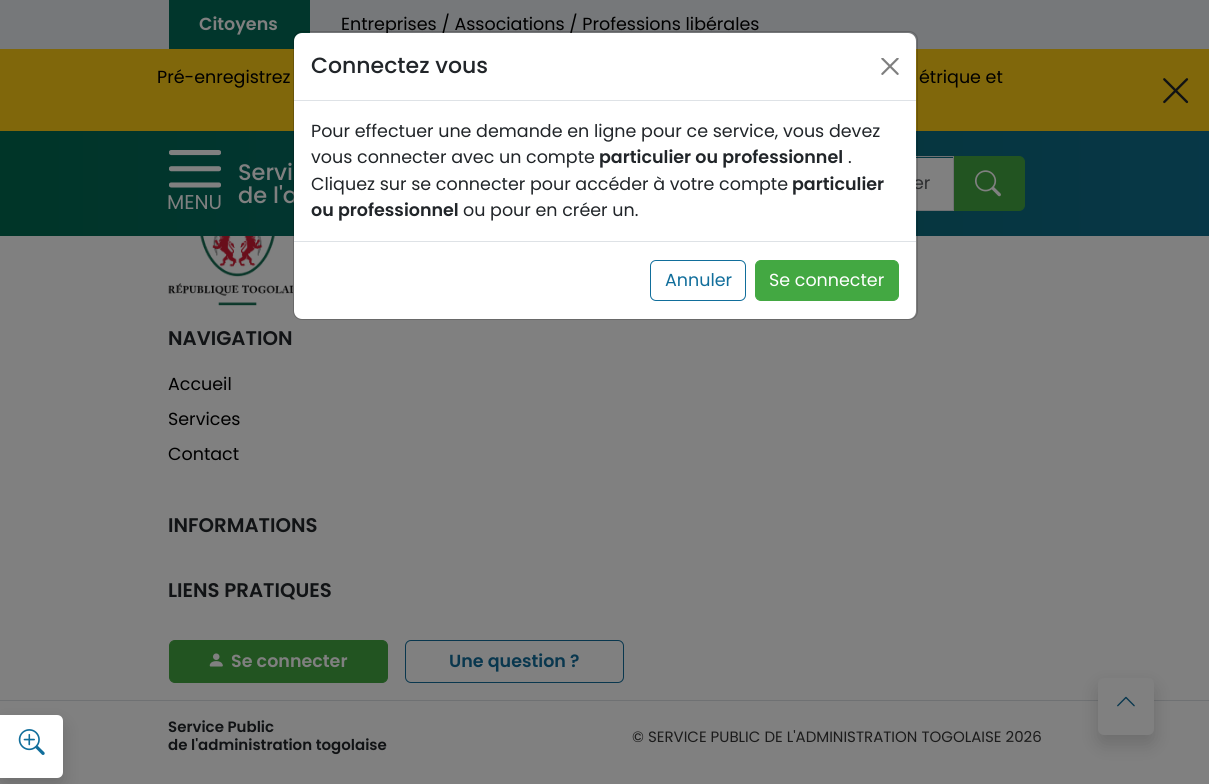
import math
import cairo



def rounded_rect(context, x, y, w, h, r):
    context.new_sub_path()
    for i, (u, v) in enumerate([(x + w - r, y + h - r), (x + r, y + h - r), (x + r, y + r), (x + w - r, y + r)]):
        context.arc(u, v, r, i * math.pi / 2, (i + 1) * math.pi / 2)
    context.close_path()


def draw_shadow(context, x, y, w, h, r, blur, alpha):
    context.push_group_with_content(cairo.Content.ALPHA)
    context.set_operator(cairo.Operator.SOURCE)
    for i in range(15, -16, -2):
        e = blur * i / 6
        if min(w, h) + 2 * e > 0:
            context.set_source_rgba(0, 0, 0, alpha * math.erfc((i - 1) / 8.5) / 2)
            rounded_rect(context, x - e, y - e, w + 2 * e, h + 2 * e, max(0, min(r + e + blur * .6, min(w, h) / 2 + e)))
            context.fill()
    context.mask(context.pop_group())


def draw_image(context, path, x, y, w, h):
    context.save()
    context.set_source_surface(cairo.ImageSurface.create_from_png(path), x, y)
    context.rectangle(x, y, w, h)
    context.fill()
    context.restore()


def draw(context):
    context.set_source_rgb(128 / 255, 128 / 255, 128 / 255)
    context.paint()
    context.set_source_rgb(118 / 255, 120 / 255, 122 / 255)
    context.rectangle(0, 0, 1209, 49)
    context.fill()
    context.set_source_rgb(1 / 255, 54 / 255, 44 / 255)
    context.rectangle(169, 0, 141, 49)
    context.fill()
    context.set_source_rgb(128 / 255, 103 / 255, 11 / 255)
    context.rectangle(0, 49, 1209, 82)
    context.fill()
    draw_image(context, "images/1.png", 1163, 78, 26, 26)
    gradient = cairo.LinearGradient(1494, 184, 0, 184)
    gradient.add_color_stop_rgba(0, 9 / 255, 55 / 255, 78 / 255, 1)
    gradient.add_color_stop_rgba(1, 0, 53 / 255, 40 / 255, 1)
    context.set_source(gradient)
    context.rectangle(0, 131, 1209, 105)
    context.fill()
    draw_image(context, "images/2.png", 169, 150, 52, 38)
    context.set_source_rgb(128 / 255, 128 / 255, 128 / 255)
    context.rectangle(916, 158, 37, 52)
    context.fill()
    context.set_source_rgb(34 / 255, 84 / 255, 33 / 255)
    context.new_path()
    context.move_to(953.5, 156.5)
    context.line_to(1019, 156.5)
    context.curve_to(1022, 156.5, 1024.5, 159, 1024.5, 162)
    context.line_to(1024.5, 205)
    context.curve_to(1024.5, 208, 1022, 210.5, 1019, 210.5)
    context.line_to(953.5, 210.5)
    context.close_path()
    context.fill_preserve()
    context.set_line_width(1)
    context.stroke()
    context.rectangle(754.5, 156.5, 199, 54)
    context.set_source_rgb(111 / 255, 113 / 255, 115 / 255)
    context.stroke()
    draw_image(context, "images/3.png", 975, 170, 26, 27)
    context.rectangle(0, 700, 1209, 1)
    context.fill()
    context.set_source_rgb(0, 0, 0)
    draw_shadow(context, 0, 724, 63, 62, 6, 9, 0.15)
    context.set_source_rgb(1, 1, 1)
    context.new_path()
    context.move_to(0, 715)
    context.line_to(57, 715)
    context.curve_to(60.5, 715, 63, 717.5, 63, 721)
    context.line_to(63, 772)
    context.curve_to(63, 775.5, 60.5, 778, 57, 778)
    context.line_to(0, 778)
    context.close_path()
    context.fill()
    draw_image(context, "images/5.png", 18, 729, 27, 26)
    draw_image(context, "images/6.png", 168, 236, 125, 70)
    context.set_source_rgb(34 / 255, 84 / 255, 33 / 255)
    rounded_rect(context, 169.5, 640.5, 218, 42, 5.5)
    context.fill_preserve()
    context.stroke()
    draw_image(context, "images/7.png", 209, 653, 14, 14)
    rounded_rect(context, 405.5, 640.5, 218, 42, 5.5)
    context.set_source_rgb(9 / 255, 55 / 255, 78 / 255)
    context.stroke()
    context.set_source_rgb(0, 0, 0)
    draw_shadow(context, 1098, 686, 56, 58, 6, 9, 0.15)
    context.set_source_rgb(128 / 255, 128 / 255, 128 / 255)
    rounded_rect(context, 1098, 678, 56, 57, 6)
    context.fill()
    draw_image(context, "images/8.png", 1117, 696, 18, 11)
    context.select_font_face("Poppins SemiBold")
    context.set_font_size(17.5)
    context.move_to(199, 30)
    context.show_text("Citoyens")
    context.select_font_face("Poppins")
    context.set_source_rgb(0, 0, 0)
    context.move_to(341, 30)
    context.show_text("Entreprises / Associations / Professions libérales")
    context.move_to(157, 83)
    context.show_text("Pré-enregistrez")
    context.move_to(919, 83)
    context.show_text("étrique et")
    context.set_font_size(20)
    context.set_source_rgb(128 / 255, 128 / 255, 128 / 255)
    context.move_to(167, 209)
    context.show_text("MENU")
    context.select_font_face("Poppins Medium")
    context.set_font_size(22.5)
    context.move_to(238, 180)
    context.show_text("Servi")
    context.move_to(238, 203)
    context.show_text("de l'a")
    context.select_font_face("Poppins")
    context.set_font_size(17.5)
    context.set_source_rgb(45 / 255, 46 / 255, 48 / 255)
    context.move_to(913, 189)
    context.show_text("er")
    context.set_source_rgb(1, 1, 1)
    rounded_rect(context, 294, 33, 622, 286, 8)
    context.fill()
    rounded_rect(context, 293.5, 31.5, 624, 288, 8.5)
    context.set_source_rgba(0, 0, 0, 0.18)
    context.stroke()
    context.set_source_rgb(222 / 255, 226 / 255, 230 / 255)
    context.rectangle(294, 100, 622, 1)
    context.fill()
    context.select_font_face("Poppins Medium")
    context.set_font_size(22)
    context.set_source_rgb(33 / 255, 37 / 255, 41 / 255)
    context.move_to(311, 73)
    context.show_text("Connectez vous")
    draw_image(context, "images/4.png", 881, 58, 18, 17)
    context.select_font_face("Poppins")
    context.set_font_size(17.5)
    context.move_to(311, 137)
    context.show_text("Pour effectuer une demande en ligne pour ce service, vous devez")
    context.move_to(311, 163)
    context.show_text("vous connecter avec un compte")
    context.select_font_face("Poppins SemiBold")
    context.move_to(599, 163)
    context.show_text("particulier ou professionnel")
    context.select_font_face("Poppins")
    context.move_to(848, 163)
    context.show_text(".")
    context.move_to(311, 190)
    context.show_text("Cliquez sur se connecter pour accéder à votre compte")
    context.select_font_face("Poppins SemiBold")
    context.move_to(792, 190)
    context.show_text("particulier")
    context.move_to(311, 216)
    context.show_text("ou professionnel")
    context.select_font_face("Poppins")
    context.move_to(463, 216)
    context.show_text("ou pour en créer un.")
    context.set_source_rgb(222 / 255, 226 / 255, 230 / 255)
    context.rectangle(294, 241, 622, 1)
    context.fill()
    rounded_rect(context, 650.5, 260.5, 95, 40, 5.5)
    context.set_source_rgb(17 / 255, 110 / 255, 155 / 255)
    context.stroke()
    context.move_to(665, 286)
    context.show_text("Annuler")
    context.set_source_rgb(67 / 255, 168 / 255, 66 / 255)
    rounded_rect(context, 755.5, 260.5, 143, 40, 5.5)
    context.fill_preserve()
    context.stroke()
    context.set_source_rgb(1, 1, 1)
    context.move_to(769, 286)
    context.show_text("Se connecter")
    context.select_font_face("Poppins SemiBold")
    context.set_font_size(19.75)
    context.set_source_rgb(17 / 255, 19 / 255, 21 / 255)
    context.move_to(168, 345)
    context.show_text("NAVIGATION")
    context.select_font_face("Poppins")
    context.set_font_size(17.5)
    context.set_source_rgb(0, 0, 0)
    context.move_to(168, 390)
    context.show_text("Accueil")
    context.move_to(168, 425)
    context.show_text("Services")
    context.move_to(168, 460)
    context.show_text("Contact")
    context.select_font_face("Poppins SemiBold")
    context.set_font_size(19.75)
    context.set_source_rgb(17 / 255, 19 / 255, 21 / 255)
    context.move_to(168, 532)
    context.show_text("INFORMATIONS")
    context.move_to(168, 597)
    context.show_text("LIENS PRATIQUES")
    context.set_font_size(17.5)
    context.set_source_rgb(128 / 255, 128 / 255, 128 / 255)
    context.move_to(231, 667)
    context.show_text("Se connecter")
    context.set_source_rgb(9 / 255, 55 / 255, 78 / 255)
    context.move_to(449, 667)
    context.show_text("Une question ?")
    context.set_font_size(15)
    context.set_source_rgb(17 / 255, 19 / 255, 21 / 255)
    context.move_to(168, 732)
    context.show_text("Service Public")
    context.move_to(168, 750)
    context.show_text("de l'administration togolaise")
    context.select_font_face("Poppins")
    context.set_source_rgb(27 / 255, 27 / 255, 27 / 255)
    context.move_to(632, 742)
    context.show_text("© SERVICE PUBLIC DE L'ADMINISTRATION TOGOLAISE 2026")


surface = cairo.ImageSurface(cairo.Format.RGB24, 1209, 784)
context = cairo.Context(surface)
options = cairo.FontOptions()
options.set_hint_metrics(cairo.HintMetrics.OFF)
options.set_hint_style(cairo.HintStyle.NONE)
context.set_font_options(options)
context.set_miter_limit(4)
draw(context)
surface.write_to_png("out.png")
